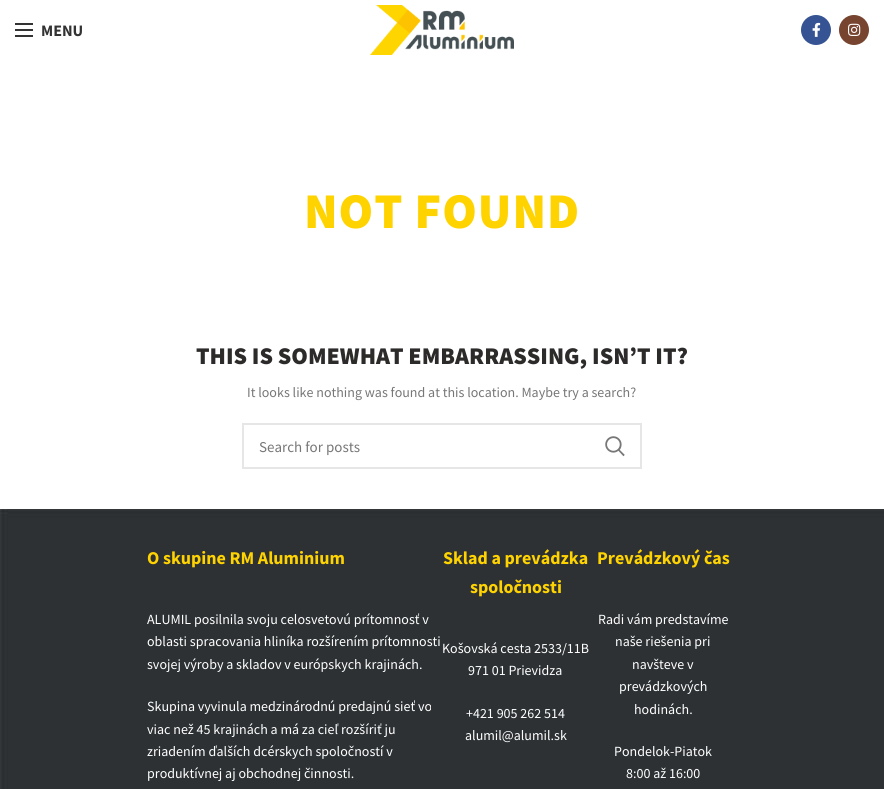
import math
import cairo



def draw_spaced(context, x, y, s, letter, word):
    context.move_to(x, y)
    for ch in s:
        context.show_text(ch)
        context.rel_move_to(letter + word * (ch == ' '), 0)


def draw_image(context, path, x, y, w, h):
    context.save()
    context.set_source_surface(cairo.ImageSurface.create_from_png(path), x, y)
    context.rectangle(x, y, w, h)
    context.fill()
    context.restore()


def draw(context):
    context.set_source_rgb(1, 1, 1)
    context.paint()
    context.set_source_rgb(51 / 255, 51 / 255, 51 / 255)
    context.rectangle(15, 29, 18, 2)
    context.fill()
    context.rectangle(15, 23, 18, 2)
    context.fill()
    context.rectangle(15, 35, 18, 2)
    context.fill()
    draw_image(context, "images/1.png", 370, 5, 144, 50)
    context.set_source_rgb(54 / 255, 84 / 255, 147 / 255)
    context.arc(816, 30, 15, 0, 2 * math.pi)
    context.fill()
    draw_image(context, "images/2.png", 812, 22, 9, 15)
    context.set_source_rgb(119 / 255, 68 / 255, 48 / 255)
    context.arc(854, 30, 15, 0, 2 * math.pi)
    context.fill()
    draw_image(context, "images/3.png", 848, 23, 13, 13)
    context.rectangle(243, 424, 398, 44)
    context.set_source_rgb(230 / 255, 230 / 255, 230 / 255)
    context.stroke()
    draw_image(context, "images/4.png", 605, 436, 20, 21)
    draw_image(context, "images/5.png", 0, 509, 884, 280)
    context.select_font_face("Source Sans Pro", cairo.FontSlant.NORMAL, cairo.FontWeight.BOLD)
    context.set_font_size(16)
    context.set_source_rgb(51 / 255, 51 / 255, 51 / 255)
    context.move_to(41, 36)
    context.show_text("MENU")
    context.select_font_face("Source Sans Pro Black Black")
    context.set_font_size(50)
    context.set_source_rgb(1, 211 / 255, 0)
    draw_spaced(context, 304, 228, "NOT FOUND", 1, 0)
    context.set_font_size(24)
    context.set_source_rgb(45 / 255, 42 / 255, 42 / 255)
    context.move_to(196, 364)
    context.show_text("THIS IS SOMEWHAT EMBARRASSING, ISN’T IT?")
    context.select_font_face("Source Sans Pro")
    context.set_font_size(14)
    context.set_source_rgb(119 / 255, 119 / 255, 119 / 255)
    context.move_to(247, 397)
    context.show_text("It looks like nothing was found at this location. Maybe try a search?")
    context.set_font_size(15)
    context.move_to(259, 452)
    context.show_text("Search for posts")
    context.select_font_face("Source Sans Pro", cairo.FontSlant.NORMAL, cairo.FontWeight.BOLD)
    context.set_font_size(18)
    context.set_source_rgb(1, 211 / 255, 0)
    context.move_to(147, 564)
    context.show_text("O skupine RM Aluminium")
    context.select_font_face("Source Sans Pro")
    context.set_font_size(14)
    context.set_source_rgb(1, 1, 1)
    context.move_to(147, 624)
    context.show_text("ALUMIL posilnila svoju celosvetovú prítomnosť v")
    context.move_to(147, 646)
    context.show_text("oblasti spracovania hliníka rozšírením prítomnosti")
    context.move_to(147, 669)
    context.show_text("svojej výroby a skladov v európskych krajinách.")
    context.move_to(147, 711)
    context.show_text("Skupina vyvinula medzinárodnú predajnú sieť vo")
    context.move_to(147, 734)
    context.show_text("viac než 45 krajinách a má za cieľ rozšíriť ju")
    context.move_to(147, 756)
    context.show_text("zriadením ďalších dcérskych spoločností v")
    context.move_to(147, 778)
    context.show_text("produktívnej aj obchodnej činnosti.")
    context.select_font_face("Source Sans Pro", cairo.FontSlant.NORMAL, cairo.FontWeight.BOLD)
    context.set_font_size(18)
    context.set_source_rgb(1, 211 / 255, 0)
    context.move_to(443, 564)
    context.show_text("Sklad a prevádzka")
    context.move_to(470, 593)
    context.show_text("spoločnosti")
    context.select_font_face("Source Sans Pro")
    context.set_font_size(14)
    context.set_source_rgb(1, 1, 1)
    context.move_to(442, 653)
    context.show_text("Košovská cesta 2533/11B")
    context.move_to(468, 675)
    context.show_text("971 01 Prievidza")
    context.move_to(466, 718)
    context.show_text("+421 905 262 514")
    context.move_to(465, 740)
    context.show_text("alumil@alumil.sk")
    context.select_font_face("Source Sans Pro", cairo.FontSlant.NORMAL, cairo.FontWeight.BOLD)
    context.set_font_size(18)
    context.set_source_rgb(1, 211 / 255, 0)
    context.move_to(597, 564)
    context.show_text("Prevádzkový čas")
    context.select_font_face("Source Sans Pro")
    context.set_font_size(14)
    context.set_source_rgb(1, 1, 1)
    context.move_to(598, 624)
    context.show_text("Radi vám predstavíme")
    context.move_to(615, 646)
    context.show_text("naše riešenia pri")
    context.move_to(632, 669)
    context.show_text("navšteve v")
    context.move_to(619, 691)
    context.show_text("prevádzkových")
    context.move_to(634, 714)
    context.show_text("hodinách.")
    context.move_to(614, 756)
    context.show_text("Pondelok-Piatok")
    context.move_to(626, 778)
    context.show_text("8:00 až 16:00")


surface = cairo.ImageSurface(cairo.Format.RGB24, 884, 789)
context = cairo.Context(surface)
options = cairo.FontOptions()
options.set_hint_metrics(cairo.HintMetrics.OFF)
options.set_hint_style(cairo.HintStyle.NONE)
context.set_font_options(options)
context.set_miter_limit(4)
draw(context)
surface.write_to_png("out.png")
